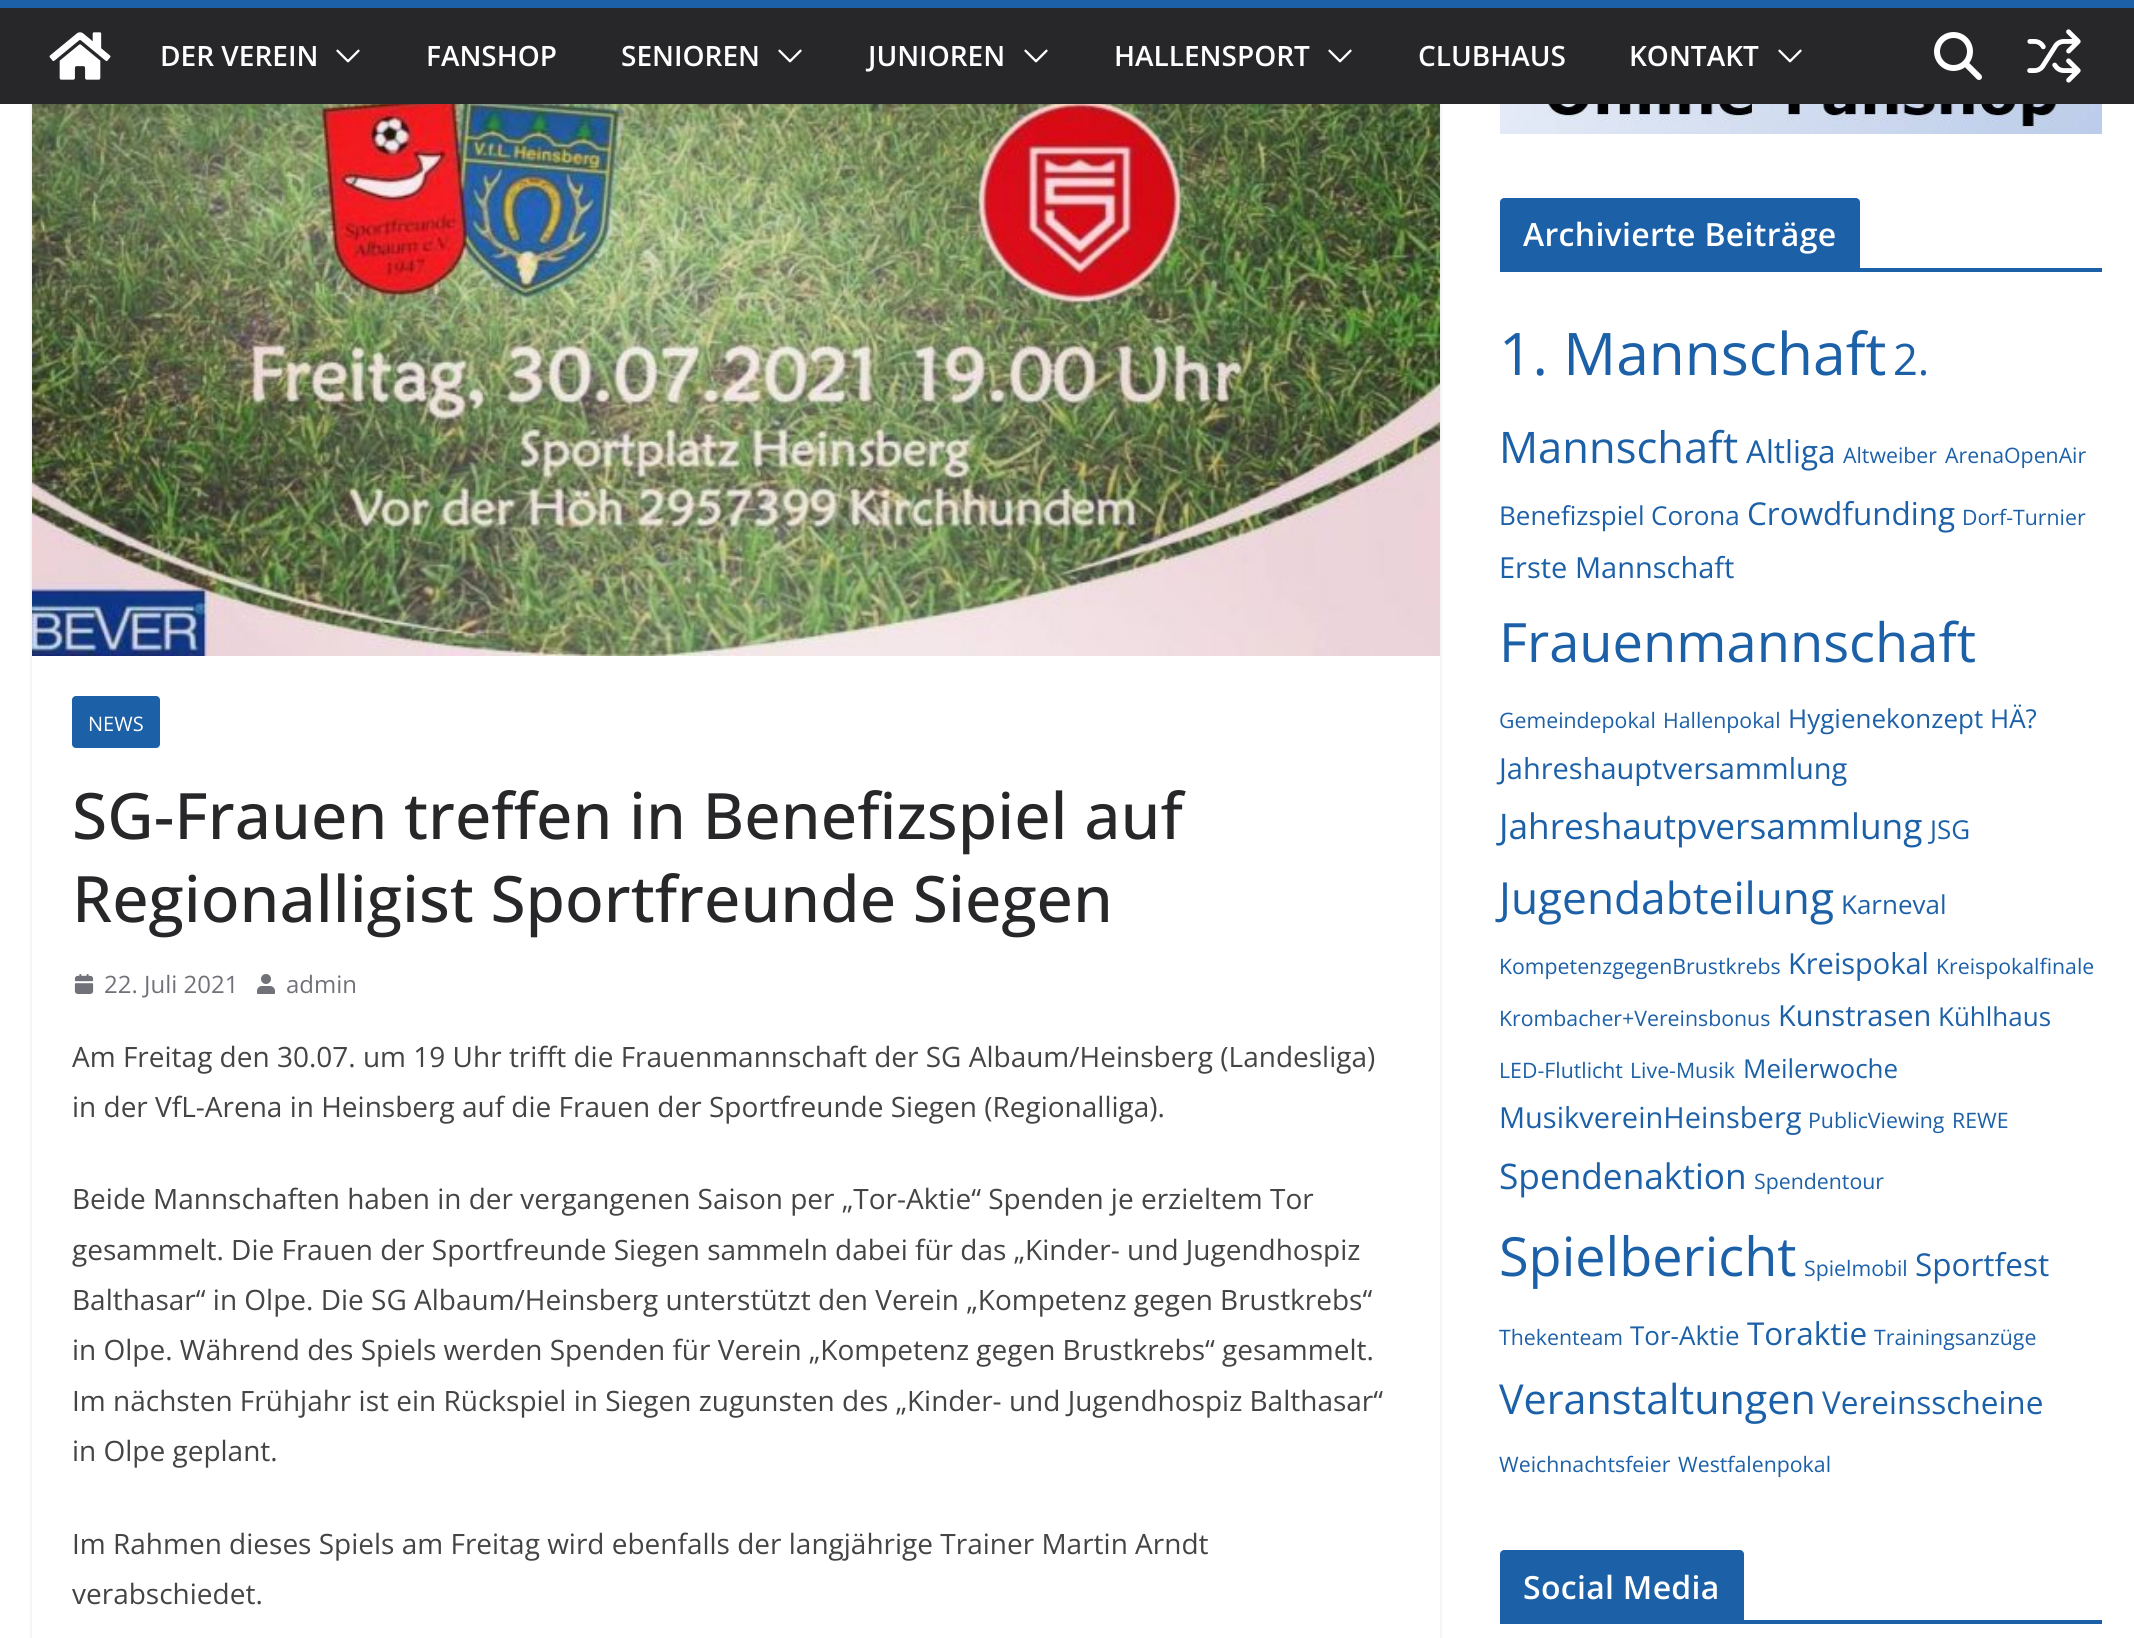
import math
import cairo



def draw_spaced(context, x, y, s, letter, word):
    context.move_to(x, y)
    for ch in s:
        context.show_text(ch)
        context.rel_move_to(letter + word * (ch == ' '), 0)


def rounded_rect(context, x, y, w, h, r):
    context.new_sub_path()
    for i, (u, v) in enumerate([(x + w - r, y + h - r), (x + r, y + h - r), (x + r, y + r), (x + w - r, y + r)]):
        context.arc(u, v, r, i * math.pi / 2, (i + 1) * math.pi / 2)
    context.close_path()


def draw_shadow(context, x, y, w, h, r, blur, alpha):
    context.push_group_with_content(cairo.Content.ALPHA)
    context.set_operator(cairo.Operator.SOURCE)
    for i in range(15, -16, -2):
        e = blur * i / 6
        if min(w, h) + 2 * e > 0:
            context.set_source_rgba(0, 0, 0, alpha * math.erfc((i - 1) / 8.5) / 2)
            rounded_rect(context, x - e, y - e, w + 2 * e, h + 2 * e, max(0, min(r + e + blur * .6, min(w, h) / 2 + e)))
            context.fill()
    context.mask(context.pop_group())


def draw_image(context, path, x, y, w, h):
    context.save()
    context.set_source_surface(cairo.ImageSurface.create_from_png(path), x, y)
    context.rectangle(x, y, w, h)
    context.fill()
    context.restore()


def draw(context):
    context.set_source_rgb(1, 1, 1)
    context.paint()
    context.save()
    context.set_fill_rule(cairo.FillRule.EVEN_ODD)
    context.new_path()
    context.move_to(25, 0)
    context.line_to(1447, 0)
    context.line_to(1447, 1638)
    context.line_to(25, 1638)
    context.close_path()
    context.move_to(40, -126)
    context.line_to(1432, -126)
    context.curve_to(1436.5, -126, 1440, -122.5, 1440, -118)
    context.line_to(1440, 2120)
    context.curve_to(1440, 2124.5, 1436.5, 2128, 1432, 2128)
    context.line_to(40, 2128)
    context.curve_to(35.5, 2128, 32, 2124.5, 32, 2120)
    context.line_to(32, -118)
    context.curve_to(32, -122.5, 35.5, -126, 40, -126)
    context.close_path()
    context.clip()
    context.set_source_rgb(228 / 255, 228 / 255, 231 / 255)
    draw_shadow(context, 32, -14, 1408, 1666, 8, 2, 1)
    context.restore()
    context.set_source_rgb(39 / 255, 39 / 255, 42 / 255)
    context.rectangle(0, 8, 2134, 96)
    context.fill()
    context.set_source_rgb(28 / 255, 96 / 255, 168 / 255)
    context.rectangle(0, 0, 2134, 8)
    context.fill()
    draw_image(context, "images/1.png", 49, 32, 62, 48)
    draw_image(context, "images/2.png", 336, 49, 24, 14)
    draw_image(context, "images/2.png", 778, 49, 24, 14)
    draw_image(context, "images/2.png", 1024, 49, 24, 14)
    draw_image(context, "images/2.png", 1328, 49, 24, 14)
    draw_image(context, "images/2.png", 1778, 49, 24, 14)
    draw_image(context, "images/3.png", 1934, 32, 48, 48)
    draw_image(context, "images/4.png", 2027, 29, 54, 54)
    draw_image(context, "images/5.png", 32, 104, 1408, 552)
    rounded_rect(context, 72, 696, 88, 52, 4)
    context.fill()
    draw_image(context, "images/6.png", 74, 974, 20, 20)
    draw_image(context, "images/7.png", 257, 974, 18, 20)
    draw_image(context, "images/8.png", 1500, 104, 602, 30)
    context.rectangle(1500, 268, 602, 4)
    context.fill()
    context.new_path()
    context.move_to(1504, 198)
    context.line_to(1856, 198)
    context.curve_to(1858, 198, 1860, 200, 1860, 202)
    context.line_to(1860, 268)
    context.line_to(1500, 268)
    context.line_to(1500, 202)
    context.curve_to(1500, 200, 1502, 198, 1504, 198)
    context.close_path()
    context.fill()
    context.rectangle(1500, 1620, 602, 4)
    context.fill()
    context.new_path()
    context.move_to(1504, 1550)
    context.line_to(1740, 1550)
    context.curve_to(1742, 1550, 1744, 1552, 1744, 1554)
    context.line_to(1744, 1620)
    context.line_to(1500, 1620)
    context.line_to(1500, 1554)
    context.curve_to(1500, 1552, 1502, 1550, 1504, 1550)
    context.close_path()
    context.fill()
    context.select_font_face("Open Sans SemiBold")
    context.set_font_size(28)
    context.set_source_rgb(1, 1, 1)
    context.move_to(160, 66)
    context.show_text("DER VEREIN")
    context.move_to(426, 66)
    context.show_text("FANSHOP")
    context.move_to(621, 66)
    context.show_text("SENIOREN")
    context.move_to(868, 66)
    context.show_text("JUNIOREN")
    context.move_to(1114, 66)
    context.show_text("HALLENSPORT")
    context.move_to(1418, 66)
    context.show_text("CLUBHAUS")
    context.move_to(1629, 66)
    context.show_text("KONTAKT")
    context.select_font_face("Open Sans")
    context.set_font_size(20)
    context.move_to(88, 731)
    context.show_text("NEWS")
    context.select_font_face("Open Sans Medium")
    context.set_font_size(64)
    context.set_source_rgb(39 / 255, 39 / 255, 42 / 255)
    context.move_to(72, 839)
    context.show_text("SG-Frauen treffen in Benefizspiel auf")
    context.move_to(72, 922)
    context.show_text("Regionalligist Sportfreunde Siegen")
    context.select_font_face("Open Sans")
    context.set_font_size(24)
    context.set_source_rgb(113 / 255, 113 / 255, 122 / 255)
    context.move_to(104, 993)
    context.show_text("22. Juli 2021")
    context.move_to(286, 993)
    context.show_text("admin")
    context.set_font_size(28)
    context.set_source_rgb(68 / 255, 68 / 255, 68 / 255)
    context.move_to(72, 1067)
    context.show_text("Am Freitag den 30.07. um 19 Uhr trifft die Frauenmannschaft der SG Albaum/Heinsberg (Landesliga)")
    context.move_to(72, 1117)
    context.show_text("in der VfL-Arena in Heinsberg auf die Frauen der Sportfreunde Siegen (Regionalliga).")
    context.move_to(72, 1209)
    context.show_text("Beide Mannschaften haben in der vergangenen Saison per „Tor-Aktie“ Spenden je erzieltem Tor")
    context.move_to(72, 1260)
    context.show_text("gesammelt. Die Frauen der Sportfreunde Siegen sammeln dabei für das „Kinder- und Jugendhospiz")
    context.move_to(72, 1310)
    context.show_text("Balthasar“ in Olpe. Die SG Albaum/Heinsberg unterstützt den Verein „Kompetenz gegen Brustkrebs“")
    context.move_to(72, 1360)
    context.show_text("in Olpe. Während des Spiels werden Spenden für Verein „Kompetenz gegen Brustkrebs“ gesammelt.")
    context.move_to(72, 1411)
    context.show_text("Im nächsten Frühjahr ist ein Rückspiel in Siegen zugunsten des „Kinder- und Jugendhospiz Balthasar“")
    context.move_to(72, 1461)
    context.show_text("in Olpe geplant.")
    context.move_to(72, 1554)
    context.show_text("Im Rahmen dieses Spiels am Freitag wird ebenfalls der langjährige Trainer Martin Arndt")
    context.move_to(72, 1604)
    context.show_text("verabschiedet.")
    context.select_font_face("Open Sans SemiBold")
    context.set_font_size(32)
    context.set_source_rgb(1, 1, 1)
    draw_spaced(context, 1523, 246, "Archivierte Beiträge", 0.3, 0)
    context.select_font_face("Open Sans")
    context.set_font_size(58.75)
    context.set_source_rgb(28 / 255, 96 / 255, 168 / 255)
    context.move_to(1499, 375)
    context.show_text("1. Mannschaft")
    context.set_font_size(43.5)
    context.move_to(1893, 375)
    context.show_text("2.")
    context.move_to(1499, 463)
    context.show_text("Mannschaft")
    context.set_font_size(31.5)
    context.move_to(1746, 463)
    context.show_text("Altliga")
    context.set_font_size(21.3)
    context.move_to(1843, 463)
    context.show_text("Altweiber")
    context.move_to(1945, 463)
    context.show_text("ArenaOpenAir")
    context.set_font_size(26)
    context.move_to(1499, 525)
    context.show_text("Benefizspiel")
    context.move_to(1651, 525)
    context.show_text("Corona")
    context.set_font_size(31.5)
    context.move_to(1747, 525)
    context.show_text("Crowdfunding")
    context.set_font_size(21.3)
    context.move_to(1962, 525)
    context.show_text("Dorf-Turnier")
    context.set_font_size(29)
    context.move_to(1499, 578)
    context.show_text("Erste Mannschaft")
    context.set_font_size(54.25)
    context.move_to(1499, 662)
    context.show_text("Frauenmannschaft")
    context.set_font_size(21.3)
    context.move_to(1499, 728)
    context.show_text("Gemeindepokal")
    context.move_to(1663, 728)
    context.show_text("Hallenpokal")
    context.set_font_size(26)
    context.move_to(1788, 728)
    context.show_text("Hygienekonzept")
    context.move_to(1990, 728)
    context.show_text("HÄ?")
    context.set_font_size(29)
    context.move_to(1499, 779)
    context.show_text("Jahreshauptversammlung")
    context.set_font_size(35.25)
    context.move_to(1499, 839)
    context.show_text("Jahreshautpversammlung")
    context.set_font_size(26)
    context.move_to(1930, 839)
    context.show_text("JSG")
    context.set_font_size(44.25)
    context.move_to(1499, 914)
    context.show_text("Jugendabteilung")
    context.set_font_size(26)
    context.move_to(1841, 914)
    context.show_text("Karneval")
    context.set_font_size(21.3)
    context.move_to(1499, 974)
    context.show_text("KompetenzgegenBrustkrebs")
    context.set_font_size(29)
    context.move_to(1788, 974)
    context.show_text("Kreispokal")
    context.set_font_size(21.3)
    context.move_to(1936, 974)
    context.show_text("Kreispokalfinale")
    context.move_to(1499, 1026)
    context.show_text("Krombacher+Vereinsbonus")
    context.set_font_size(29)
    context.move_to(1778, 1026)
    context.show_text("Kunstrasen")
    context.set_font_size(26)
    context.move_to(1938, 1026)
    context.show_text("Kühlhaus")
    context.set_font_size(21.3)
    context.move_to(1499, 1078)
    context.show_text("LED-Flutlicht")
    context.move_to(1630, 1078)
    context.show_text("Live-Musik")
    context.set_font_size(26)
    context.move_to(1743, 1078)
    context.show_text("Meilerwoche")
    context.set_font_size(29)
    context.move_to(1499, 1128)
    context.show_text("MusikvereinHeinsberg")
    context.set_font_size(21.3)
    context.move_to(1808, 1128)
    context.show_text("PublicViewing")
    context.move_to(1952, 1128)
    context.show_text("REWE")
    context.set_font_size(35.25)
    context.move_to(1499, 1189)
    context.show_text("Spendenaktion")
    context.set_font_size(21.3)
    context.move_to(1754, 1189)
    context.show_text("Spendentour")
    context.set_font_size(54)
    context.move_to(1499, 1276)
    context.show_text("Spielbericht")
    context.set_font_size(21.3)
    context.move_to(1804, 1276)
    context.show_text("Spielmobil")
    context.set_font_size(31.5)
    context.move_to(1915, 1276)
    context.show_text("Sportfest")
    context.set_font_size(21.3)
    context.move_to(1499, 1345)
    context.show_text("Thekenteam")
    context.set_font_size(26)
    context.move_to(1630, 1345)
    context.show_text("Tor-Aktie")
    context.set_font_size(31.5)
    context.move_to(1747, 1345)
    context.show_text("Toraktie")
    context.set_font_size(21.3)
    context.move_to(1874, 1345)
    context.show_text("Trainingsanzüge")
    context.set_font_size(41.25)
    context.move_to(1499, 1414)
    context.show_text("Veranstaltungen")
    context.set_font_size(31.5)
    context.move_to(1822, 1414)
    context.show_text("Vereinsscheine")
    context.set_font_size(21.3)
    context.move_to(1499, 1472)
    context.show_text("Weichnachtsfeier")
    context.move_to(1678, 1472)
    context.show_text("Westfalenpokal")
    context.select_font_face("Open Sans SemiBold")
    context.set_font_size(32)
    context.set_source_rgb(1, 1, 1)
    draw_spaced(context, 1523, 1599, "Social Media", 0.3, 0)


surface = cairo.ImageSurface(cairo.Format.RGB24, 2134, 1638)
context = cairo.Context(surface)
options = cairo.FontOptions()
options.set_hint_metrics(cairo.HintMetrics.OFF)
options.set_hint_style(cairo.HintStyle.NONE)
context.set_font_options(options)
context.set_miter_limit(4)
draw(context)
surface.write_to_png("out.png")
